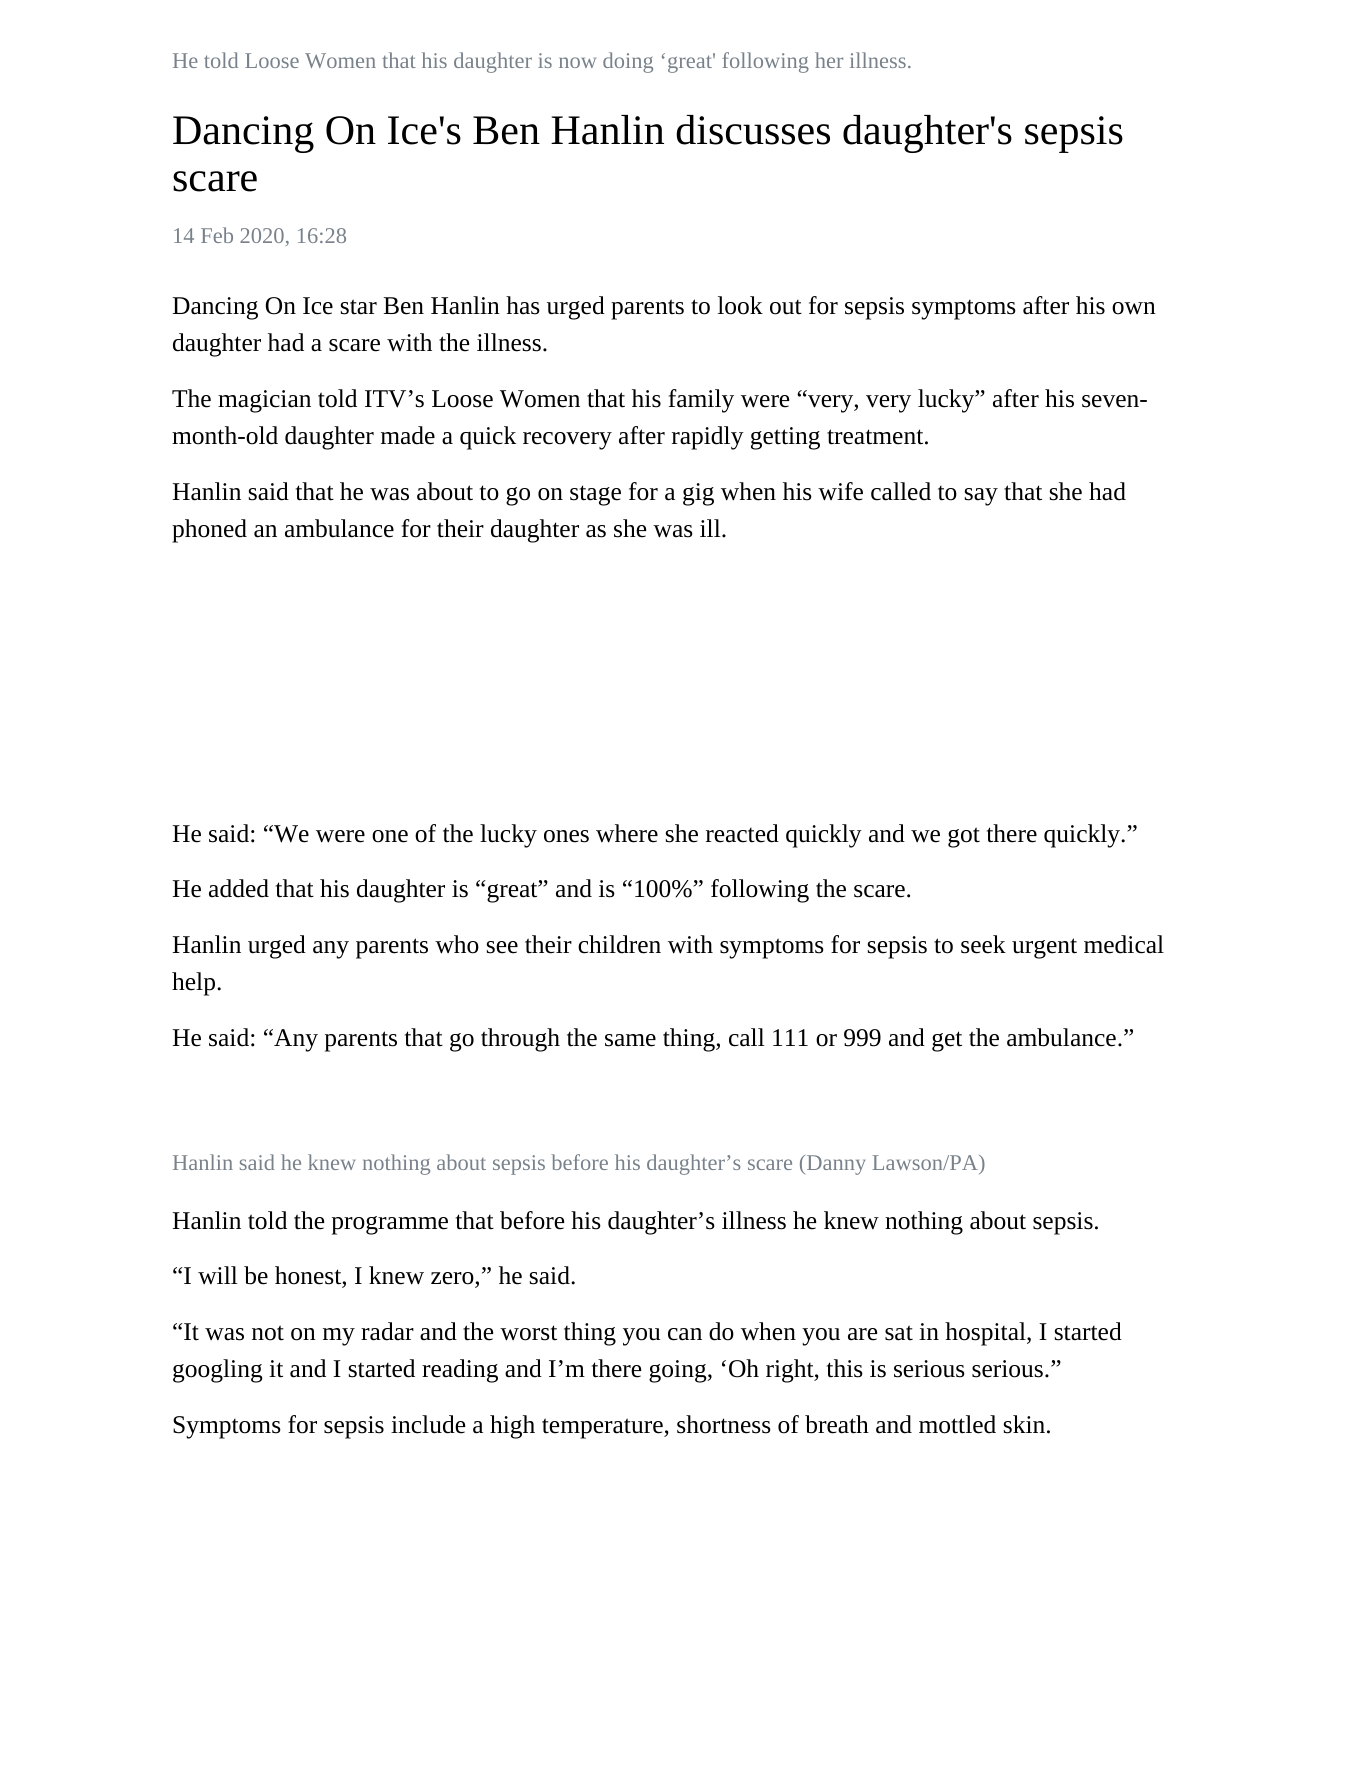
import math
import cairo



def draw(context):
    context.set_source_rgb(1, 1, 1)
    context.paint()
    context.select_font_face("Liberation Serif")
    context.set_font_size(22.5)
    context.set_source_rgb(121 / 255, 130 / 255, 139 / 255)
    context.move_to(172, 68)
    context.show_text("He told Loose Women that his daughter is now doing ‘great' following her illness.")
    context.set_font_size(42)
    context.set_source_rgb(0, 0, 0)
    context.move_to(172, 144)
    context.show_text("Dancing On Ice's Ben Hanlin discusses daughter's sepsis")
    context.move_to(172, 191)
    context.show_text("scare")
    context.set_font_size(22.5)
    context.set_source_rgb(121 / 255, 130 / 255, 139 / 255)
    context.move_to(172, 243)
    context.show_text("14 Feb 2020, 16:28")
    context.set_font_size(25.5)
    context.set_source_rgb(0, 0, 0)
    context.move_to(172, 314)
    context.show_text("Dancing On Ice star Ben Hanlin has urged parents to look out for sepsis symptoms after his own")
    context.move_to(172, 351)
    context.show_text("daughter had a scare with the illness.")
    context.move_to(172, 407)
    context.show_text("The magician told ITV’s Loose Women that his family were “very, very lucky” after his seven-")
    context.move_to(172, 444)
    context.show_text("month-old daughter made a quick recovery after rapidly getting treatment.")
    context.move_to(172, 500)
    context.show_text("Hanlin said that he was about to go on stage for a gig when his wife called to say that she had")
    context.move_to(172, 537)
    context.show_text("phoned an ambulance for their daughter as she was ill.")
    context.move_to(172, 842)
    context.show_text("He said: “We were one of the lucky ones where she reacted quickly and we got there quickly.”")
    context.move_to(172, 897)
    context.show_text("He added that his daughter is “great” and is “100%” following the scare.")
    context.move_to(172, 953)
    context.show_text("Hanlin urged any parents who see their children with symptoms for sepsis to seek urgent medical")
    context.move_to(172, 990)
    context.show_text("help.")
    context.move_to(172, 1046)
    context.show_text("He said: “Any parents that go through the same thing, call 111 or 999 and get the ambulance.”")
    context.set_font_size(22.5)
    context.set_source_rgb(121 / 255, 130 / 255, 139 / 255)
    context.move_to(172, 1170)
    context.show_text("Hanlin said he knew nothing about sepsis before his daughter’s scare (Danny Lawson/PA)")
    context.set_font_size(25.5)
    context.set_source_rgb(0, 0, 0)
    context.move_to(172, 1229)
    context.show_text("Hanlin told the programme that before his daughter’s illness he knew nothing about sepsis.")
    context.move_to(172, 1284)
    context.show_text("“I will be honest, I knew zero,” he said.")
    context.move_to(172, 1340)
    context.show_text("“It was not on my radar and the worst thing you can do when you are sat in hospital, I started")
    context.move_to(172, 1377)
    context.show_text("googling it and I started reading and I’m there going, ‘Oh right, this is serious serious.”")
    context.move_to(172, 1433)
    context.show_text("Symptoms for sepsis include a high temperature, shortness of breath and mottled skin.")


surface = cairo.ImageSurface(cairo.Format.RGB24, 1369, 1788)
context = cairo.Context(surface)
options = cairo.FontOptions()
options.set_hint_metrics(cairo.HintMetrics.OFF)
options.set_hint_style(cairo.HintStyle.NONE)
context.set_font_options(options)
context.set_miter_limit(4)
draw(context)
surface.write_to_png("out.png")
